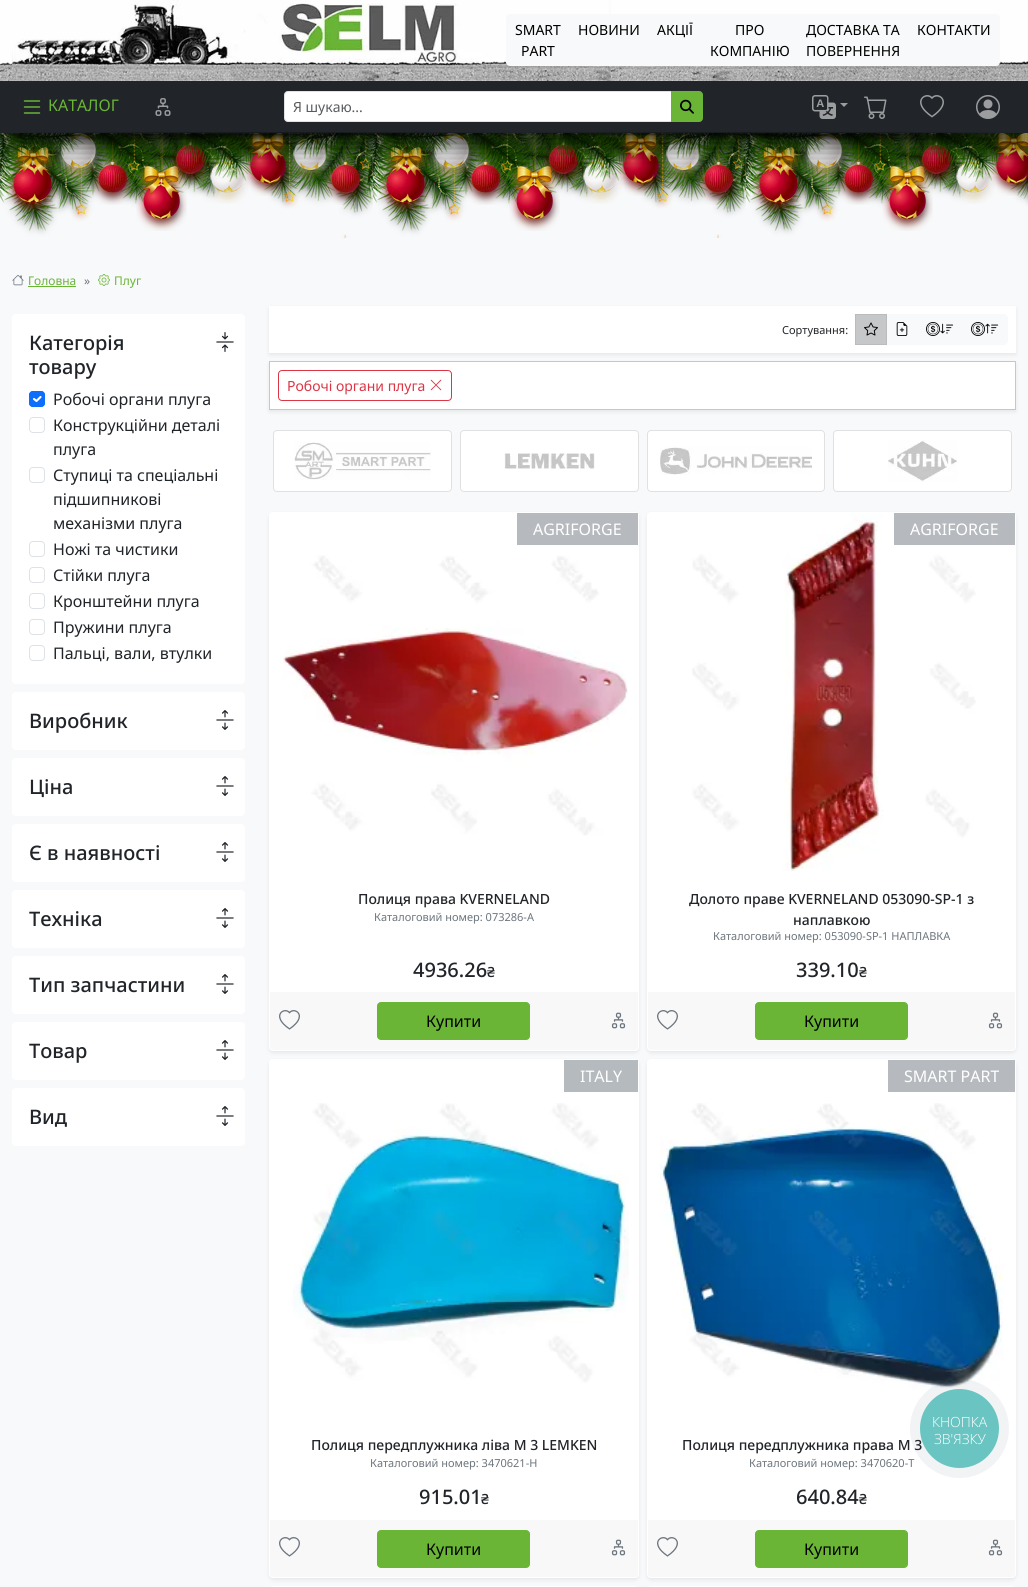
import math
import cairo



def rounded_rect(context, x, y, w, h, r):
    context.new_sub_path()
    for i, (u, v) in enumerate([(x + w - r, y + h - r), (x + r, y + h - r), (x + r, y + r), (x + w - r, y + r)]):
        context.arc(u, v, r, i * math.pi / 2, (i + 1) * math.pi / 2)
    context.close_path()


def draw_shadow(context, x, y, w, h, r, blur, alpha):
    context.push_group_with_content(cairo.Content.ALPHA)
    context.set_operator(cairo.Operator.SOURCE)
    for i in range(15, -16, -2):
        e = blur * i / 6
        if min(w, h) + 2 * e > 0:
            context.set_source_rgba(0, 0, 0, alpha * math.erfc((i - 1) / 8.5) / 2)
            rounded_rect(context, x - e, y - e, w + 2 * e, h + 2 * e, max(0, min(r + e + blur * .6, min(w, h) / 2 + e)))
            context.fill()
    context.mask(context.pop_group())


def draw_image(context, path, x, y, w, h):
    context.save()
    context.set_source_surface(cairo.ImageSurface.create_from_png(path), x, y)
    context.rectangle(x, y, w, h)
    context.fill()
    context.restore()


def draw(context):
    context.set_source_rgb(248 / 255, 249 / 255, 250 / 255)
    context.paint()
    draw_image(context, "images/1.png", 0, 133, 1028, 105)
    draw_image(context, "images/3.png", 6, 133, 52, 81)
    draw_image(context, "images/2.png", 0, 133, 25, 70)
    draw_image(context, "images/5.png", 54, 133, 49, 46)
    draw_image(context, "images/4.png", 25, 133, 61, 26)
    draw_image(context, "images/6.png", 136, 133, 51, 98)
    draw_image(context, "images/7.png", 170, 133, 41, 53)
    draw_image(context, "images/13.png", 204, 138, 45, 66)
    draw_image(context, "images/8.png", 177, 133, 28, 30)
    draw_image(context, "images/10.png", 243, 133, 49, 63)
    draw_image(context, "images/9.png", 205, 133, 50, 49)
    draw_image(context, "images/11.png", 287, 133, 46, 48)
    draw_image(context, "images/12.png", 92, 141, 41, 64)
    draw_image(context, "images/16.png", 325, 142, 41, 63)
    draw_image(context, "images/14.png", 289, 133, 78, 27)
    draw_image(context, "images/15.png", 367, 133, 6, 68)
    draw_image(context, "images/3.png", 379, 133, 52, 81)
    draw_image(context, "images/2.png", 373, 133, 25, 70)
    draw_image(context, "images/5.png", 427, 133, 49, 46)
    draw_image(context, "images/4.png", 398, 133, 61, 26)
    draw_image(context, "images/6.png", 509, 133, 51, 98)
    draw_image(context, "images/7.png", 543, 133, 41, 53)
    draw_image(context, "images/13.png", 577, 138, 45, 66)
    draw_image(context, "images/8.png", 550, 133, 28, 30)
    draw_image(context, "images/10.png", 616, 133, 49, 63)
    draw_image(context, "images/9.png", 578, 133, 50, 49)
    draw_image(context, "images/11.png", 660, 133, 46, 48)
    draw_image(context, "images/12.png", 465, 141, 41, 64)
    draw_image(context, "images/16.png", 698, 142, 41, 63)
    draw_image(context, "images/14.png", 662, 133, 78, 27)
    draw_image(context, "images/15.png", 740, 133, 6, 68)
    draw_image(context, "images/3.png", 752, 133, 52, 81)
    draw_image(context, "images/2.png", 746, 133, 25, 70)
    draw_image(context, "images/5.png", 800, 133, 49, 46)
    draw_image(context, "images/4.png", 771, 133, 61, 26)
    draw_image(context, "images/6.png", 882, 133, 51, 98)
    draw_image(context, "images/7.png", 916, 133, 41, 53)
    draw_image(context, "images/13.png", 950, 138, 45, 66)
    draw_image(context, "images/8.png", 923, 133, 28, 30)
    draw_image(context, "images/17.png", 989, 133, 39, 63)
    draw_image(context, "images/9.png", 951, 133, 50, 49)
    draw_image(context, "images/12.png", 838, 141, 41, 64)
    draw_image(context, "images/18.png", 0, 0, 1028, 81)
    draw_image(context, "images/19.png", 12, 0, 470, 81)
    context.set_source_rgb(248 / 255, 249 / 255, 250 / 255)
    context.new_path()
    context.move_to(510, 14.5)
    context.line_to(569.5, 14.5)
    context.line_to(569.5, 65.5)
    context.line_to(510, 65.5)
    context.curve_to(508, 65.5, 506.5, 64, 506.5, 62)
    context.line_to(506.5, 18)
    context.curve_to(506.5, 16, 508, 14.5, 510, 14.5)
    context.close_path()
    context.fill_preserve()
    context.set_line_width(1)
    context.stroke()
    context.rectangle(570, 14, 338, 52)
    context.fill()
    context.new_path()
    context.move_to(908.5, 14.5)
    context.line_to(996, 14.5)
    context.curve_to(998, 14.5, 999.5, 16, 999.5, 18)
    context.line_to(999.5, 62)
    context.curve_to(999.5, 64, 998, 65.5, 996, 65.5)
    context.line_to(908.5, 65.5)
    context.close_path()
    context.fill_preserve()
    context.stroke()
    context.save()
    context.rectangle(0, 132, 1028, 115)
    context.clip()
    context.set_source_rgb(0, 0, 0)
    draw_shadow(context, 0, 32, 1028, 115, 0, 15, 0.75)
    context.restore()
    context.set_source_rgb(33 / 255, 37 / 255, 41 / 255)
    context.rectangle(0, 81, 1028, 52)
    context.fill()
    draw_image(context, "images/20.png", 23, 100, 18, 14)
    draw_image(context, "images/21.png", 155, 98, 16, 18)
    context.set_source_rgb(1, 1, 1)
    context.new_path()
    context.move_to(288, 91.5)
    context.line_to(671.5, 91.5)
    context.line_to(671.5, 121.5)
    context.line_to(288, 121.5)
    context.curve_to(286, 121.5, 284.5, 120, 284.5, 118)
    context.line_to(284.5, 95)
    context.curve_to(284.5, 93, 286, 91.5, 288, 91.5)
    context.close_path()
    context.fill_preserve()
    context.set_source_rgb(222 / 255, 226 / 255, 230 / 255)
    context.stroke()
    context.set_source_rgb(106 / 255, 181 / 255, 54 / 255)
    context.new_path()
    context.move_to(671.5, 91.5)
    context.line_to(699, 91.5)
    context.curve_to(701, 91.5, 702.5, 93, 702.5, 95)
    context.line_to(702.5, 118)
    context.curve_to(702.5, 120, 701, 121.5, 699, 121.5)
    context.line_to(671.5, 121.5)
    context.close_path()
    context.fill_preserve()
    context.stroke()
    draw_image(context, "images/22.png", 680, 99, 14, 15)
    draw_image(context, "images/23.png", 812, 95, 24, 24)
    context.set_source_rgb(155 / 255, 157 / 255, 159 / 255)
    context.new_path()
    context.move_to(840, 103)
    context.line_to(848, 103)
    context.line_to(844, 107)
    context.close_path()
    context.fill()
    draw_image(context, "images/24.png", 864, 96, 23, 23)
    draw_image(context, "images/25.png", 920, 95, 24, 23)
    draw_image(context, "images/26.png", 976, 95, 24, 24)
    draw_image(context, "images/27.png", 17, 132, 1004, 13)
    draw_image(context, "images/28.png", 12, 275, 12, 11)
    context.set_source_rgb(106 / 255, 181 / 255, 54 / 255)
    context.rectangle(28, 286, 48, 1)
    context.fill()
    draw_image(context, "images/29.png", 98, 274, 12, 12)
    context.set_source_rgb(1, 1, 1)
    rounded_rect(context, 12, 314, 233, 370, 4)
    context.fill()
    draw_image(context, "images/30.png", 216, 332, 18, 20)
    context.set_source_rgb(13 / 255, 110 / 255, 253 / 255)
    rounded_rect(context, 29, 391, 16, 16, 4)
    context.fill()
    context.new_path()
    context.move_to(34, 399)
    context.line_to(36.5, 401)
    context.line_to(40.5, 397)
    context.set_source_rgb(1, 1, 1)
    context.set_line_width(2.1)
    context.set_line_cap(cairo.LineCap.ROUND)
    context.set_line_join(cairo.LineJoin.ROUND)
    context.stroke()
    rounded_rect(context, 29.5, 391.5, 15, 15, 3.5)
    context.set_source_rgb(13 / 255, 110 / 255, 253 / 255)
    context.set_line_width(1)
    context.set_line_cap(cairo.LineCap.BUTT)
    context.set_line_join(cairo.LineJoin.MITER)
    context.stroke()
    rounded_rect(context, 29.5, 417.5, 15, 15, 3.5)
    context.set_source_rgb(222 / 255, 226 / 255, 230 / 255)
    context.stroke()
    rounded_rect(context, 29.5, 467.5, 15, 15, 3.5)
    context.stroke()
    rounded_rect(context, 29.5, 541.5, 15, 15, 3.5)
    context.stroke()
    rounded_rect(context, 29.5, 567.5, 15, 15, 3.5)
    context.stroke()
    rounded_rect(context, 29.5, 593.5, 15, 15, 3.5)
    context.stroke()
    rounded_rect(context, 29.5, 619.5, 15, 15, 3.5)
    context.stroke()
    rounded_rect(context, 29.5, 645.5, 15, 15, 3.5)
    context.stroke()
    context.set_source_rgb(1, 1, 1)
    rounded_rect(context, 12, 692, 233, 58, 4)
    context.fill()
    draw_image(context, "images/31.png", 216, 710, 18, 20)
    rounded_rect(context, 12, 758, 233, 58, 4)
    context.fill()
    draw_image(context, "images/31.png", 216, 776, 18, 20)
    rounded_rect(context, 12, 824, 233, 58, 4)
    context.fill()
    draw_image(context, "images/31.png", 216, 842, 18, 20)
    rounded_rect(context, 12, 890, 233, 58, 4)
    context.fill()
    draw_image(context, "images/31.png", 216, 908, 18, 20)
    rounded_rect(context, 12, 956, 233, 58, 4)
    context.fill()
    draw_image(context, "images/31.png", 216, 974, 18, 20)
    rounded_rect(context, 12, 1022, 233, 58, 4)
    context.fill()
    draw_image(context, "images/31.png", 216, 1040, 18, 20)
    rounded_rect(context, 12, 1088, 233, 58, 4)
    context.fill()
    draw_image(context, "images/31.png", 216, 1106, 18, 20)
    context.set_source_rgb(0, 0, 0)
    draw_shadow(context, 269, 308, 747, 47, 0, 2, 0.07)
    context.set_source_rgb(1, 1, 1)
    context.rectangle(269, 306, 747, 47)
    context.fill()
    context.set_source_rgb(198 / 255, 199 / 255, 200 / 255)
    context.rectangle(855.5, 314.5, 31, 30)
    context.fill_preserve()
    context.set_source_rgb(186 / 255, 187 / 255, 188 / 255)
    context.stroke()
    draw_image(context, "images/32.png", 864, 322, 14, 14)
    context.set_source_rgb(248 / 255, 249 / 255, 250 / 255)
    context.rectangle(887, 314, 75, 31)
    context.fill()
    draw_image(context, "images/33.png", 896, 322, 12, 14)
    context.new_path()
    context.move_to(962, 314)
    context.line_to(1004, 314)
    context.curve_to(1006, 314, 1008, 316, 1008, 318)
    context.line_to(1008, 341)
    context.curve_to(1008, 343, 1006, 345, 1004, 345)
    context.line_to(962, 345)
    context.close_path()
    context.fill()
    draw_image(context, "images/34.png", 971, 322, 14, 14)
    draw_image(context, "images/35.png", 985, 323, 14, 11)
    draw_image(context, "images/34.png", 926, 322, 14, 14)
    draw_image(context, "images/36.png", 940, 323, 14, 11)
    context.set_source_rgb(0, 0, 0)
    draw_shadow(context, 269, 363, 747, 49, 0, 2, 0.07)
    context.set_source_rgb(1, 1, 1)
    context.rectangle(269.5, 361.5, 746, 48)
    context.fill_preserve()
    context.set_source_rgb(196 / 255, 200 / 255, 203 / 255)
    context.stroke()
    rounded_rect(context, 278.5, 370.5, 173, 30, 3.5)
    context.set_source_rgb(220 / 255, 53 / 255, 69 / 255)
    context.stroke()
    draw_image(context, "images/37.png", 430, 379, 12, 12)
    context.set_source_rgb(1, 1, 1)
    rounded_rect(context, 273.5, 430.5, 178, 61, 3.5)
    context.fill_preserve()
    context.set_source_rgb(225 / 255, 225 / 255, 225 / 255)
    context.stroke()
    draw_image(context, "images/38.png", 294, 442, 137, 38)
    context.set_source_rgb(1, 1, 1)
    rounded_rect(context, 460.5, 430.5, 178, 61, 3.5)
    context.fill_preserve()
    context.set_source_rgb(225 / 255, 225 / 255, 225 / 255)
    context.stroke()
    draw_image(context, "images/39.png", 504, 453, 91, 16)
    context.set_source_rgb(1, 1, 1)
    rounded_rect(context, 647.5, 430.5, 177, 61, 3.5)
    context.fill_preserve()
    context.set_source_rgb(225 / 255, 225 / 255, 225 / 255)
    context.stroke()
    draw_image(context, "images/40.png", 660, 447, 152, 28)
    context.set_source_rgb(1, 1, 1)
    rounded_rect(context, 833.5, 430.5, 178, 61, 3.5)
    context.fill_preserve()
    context.set_source_rgb(225 / 255, 225 / 255, 225 / 255)
    context.stroke()
    draw_image(context, "images/41.png", 888, 440, 69, 42)
    context.set_source_rgb(0, 0, 0)
    draw_shadow(context, 269, 514, 370, 539, 4, 2, 0.07)
    context.set_source_rgb(1, 1, 1)
    rounded_rect(context, 269.5, 512.5, 369, 538, 3.5)
    context.fill_preserve()
    context.stroke()
    context.set_source_rgb(182 / 255, 186 / 255, 190 / 255)
    context.rectangle(517, 513, 121, 32)
    context.fill()
    draw_image(context, "images/42.png", 283, 555, 345, 281)
    context.set_source_rgb(248 / 255, 248 / 255, 249 / 255)
    context.new_path()
    context.move_to(270, 991)
    context.line_to(638, 991)
    context.line_to(638, 1047)
    context.curve_to(638, 1048.5, 636.5, 1050, 635, 1050)
    context.line_to(273, 1050)
    context.curve_to(271.5, 1050, 270, 1048.5, 270, 1047)
    context.close_path()
    context.fill()
    context.set_source_rgb(1, 1, 1)
    context.rectangle(270, 991, 368, 1)
    context.fill()
    draw_image(context, "images/43.png", 279, 1010, 21, 20)
    context.set_source_rgb(106 / 255, 181 / 255, 54 / 255)
    rounded_rect(context, 377.5, 1002.5, 152, 37, 3.5)
    context.fill_preserve()
    context.stroke()
    draw_image(context, "images/44.png", 611, 1012, 15, 17)
    context.set_source_rgb(0, 0, 0)
    draw_shadow(context, 647, 514, 369, 539, 4, 2, 0.07)
    context.set_source_rgb(1, 1, 1)
    rounded_rect(context, 647.5, 512.5, 368, 538, 3.5)
    context.fill_preserve()
    context.stroke()
    draw_image(context, "images/45.png", 692, 514, 284, 357)
    context.set_source_rgb(182 / 255, 186 / 255, 190 / 255)
    context.rectangle(894, 513, 121, 32)
    context.fill()
    context.set_source_rgb(248 / 255, 248 / 255, 249 / 255)
    context.new_path()
    context.move_to(648, 991)
    context.line_to(1015, 991)
    context.line_to(1015, 1047)
    context.curve_to(1015, 1048.5, 1013.5, 1050, 1012, 1050)
    context.line_to(651, 1050)
    context.curve_to(649.5, 1050, 648, 1048.5, 648, 1047)
    context.close_path()
    context.fill()
    context.set_source_rgb(1, 1, 1)
    context.rectangle(648, 991, 367, 1)
    context.fill()
    draw_image(context, "images/43.png", 657, 1010, 21, 20)
    context.set_source_rgb(106 / 255, 181 / 255, 54 / 255)
    rounded_rect(context, 755.5, 1002.5, 152, 37, 3.5)
    context.fill_preserve()
    context.stroke()
    draw_image(context, "images/44.png", 988, 1012, 15, 17)
    context.set_source_rgb(0, 0, 0)
    draw_shadow(context, 269, 1061, 370, 519, 4, 2, 0.07)
    context.set_source_rgb(1, 1, 1)
    rounded_rect(context, 269.5, 1059.5, 369, 518, 3.5)
    context.fill_preserve()
    context.stroke()
    context.set_source_rgb(181 / 255, 186 / 255, 190 / 255)
    context.rectangle(564, 1060, 74, 32)
    context.fill()
    draw_image(context, "images/46.png", 293, 1103, 336, 280)
    context.set_source_rgb(248 / 255, 248 / 255, 249 / 255)
    context.new_path()
    context.move_to(270, 1519)
    context.line_to(638, 1519)
    context.line_to(638, 1574)
    context.curve_to(638, 1575.5, 636.5, 1577, 635, 1577)
    context.line_to(273, 1577)
    context.curve_to(271.5, 1577, 270, 1575.5, 270, 1574)
    context.close_path()
    context.fill()
    context.set_source_rgb(1, 1, 1)
    context.rectangle(270, 1519, 368, 1)
    context.fill()
    draw_image(context, "images/43.png", 279, 1537, 21, 20)
    context.set_source_rgb(106 / 255, 181 / 255, 54 / 255)
    rounded_rect(context, 377.5, 1530.5, 152, 37, 3.5)
    context.fill_preserve()
    context.stroke()
    draw_image(context, "images/44.png", 611, 1539, 15, 17)
    context.set_source_rgb(0, 0, 0)
    draw_shadow(context, 647, 1061, 369, 519, 4, 2, 0.07)
    context.set_source_rgb(1, 1, 1)
    rounded_rect(context, 647.5, 1059.5, 368, 518, 3.5)
    context.fill_preserve()
    context.stroke()
    context.set_source_rgb(182 / 255, 186 / 255, 190 / 255)
    context.rectangle(888, 1060, 127, 32)
    context.fill()
    draw_image(context, "images/47.png", 660, 1103, 344, 287)
    context.set_source_rgb(248 / 255, 248 / 255, 249 / 255)
    context.new_path()
    context.move_to(648, 1519)
    context.line_to(1015, 1519)
    context.line_to(1015, 1574)
    context.curve_to(1015, 1575.5, 1013.5, 1577, 1012, 1577)
    context.line_to(651, 1577)
    context.curve_to(649.5, 1577, 648, 1575.5, 648, 1574)
    context.close_path()
    context.fill()
    context.set_source_rgb(1, 1, 1)
    context.rectangle(648, 1519, 367, 1)
    context.fill()
    draw_image(context, "images/43.png", 657, 1537, 21, 20)
    context.set_source_rgb(106 / 255, 181 / 255, 54 / 255)
    rounded_rect(context, 755.5, 1530.5, 152, 37, 3.5)
    context.fill_preserve()
    context.stroke()
    draw_image(context, "images/44.png", 988, 1539, 15, 17)
    rounded_rect(context, 269.5, 1586.5, 369, 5, 3.5)
    context.set_source_rgb(1, 1, 1)
    context.stroke()
    rounded_rect(context, 647.5, 1586.5, 368, 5, 3.5)
    context.stroke()
    context.set_source_rgba(42 / 255, 64 / 255, 93 / 255, 0.06)
    context.arc(959.5, 1428.5, 49.5, 0, 2 * math.pi)
    context.fill()
    context.select_font_face("Noto Sans")
    context.set_font_size(14)
    context.set_source_rgb(0, 0, 0)
    context.move_to(515, 35)
    context.show_text("SMART")
    context.move_to(521, 56)
    context.show_text("PART")
    context.move_to(578, 35)
    context.show_text("НОВИНИ")
    context.move_to(657, 35)
    context.show_text("АКЦІЇ")
    context.move_to(735, 35)
    context.show_text("ПРО")
    context.move_to(710, 56)
    context.show_text("КОМПАНІЮ")
    context.move_to(806, 35)
    context.show_text("ДОСТАВКА ТА")
    context.move_to(806, 56)
    context.show_text("ПОВЕРНЕННЯ")
    context.move_to(917, 35)
    context.show_text("КОНТАКТИ")
    context.set_font_size(16)
    context.set_source_rgb(106 / 255, 181 / 255, 54 / 255)
    context.move_to(48, 111)
    context.show_text("КАТАЛОГ")
    context.set_font_size(14)
    context.set_source_rgb(89 / 255, 92 / 255, 95 / 255)
    context.move_to(293, 112)
    context.show_text("Я шукаю...")
    context.set_font_size(12)
    context.set_source_rgb(106 / 255, 181 / 255, 54 / 255)
    context.move_to(28, 285)
    context.show_text("Головна")
    context.set_source_rgb(108 / 255, 117 / 255, 125 / 255)
    context.move_to(84, 285)
    context.show_text("»")
    context.set_source_rgb(106 / 255, 181 / 255, 54 / 255)
    context.move_to(114, 285)
    context.show_text("Плуг")
    context.select_font_face("Noto Sans Medium")
    context.set_font_size(20)
    context.set_source_rgb(33 / 255, 37 / 255, 41 / 255)
    context.move_to(29, 350)
    context.show_text("Категорія")
    context.move_to(29, 374)
    context.show_text("товару")
    context.select_font_face("Noto Sans")
    context.set_font_size(16)
    context.move_to(53, 405)
    context.show_text("Робочі органи плуга")
    context.move_to(53, 431)
    context.show_text("Конструкційни деталі")
    context.move_to(53, 455)
    context.show_text("плуга")
    context.move_to(53, 481)
    context.show_text("Ступиці та спеціальні")
    context.move_to(53, 505)
    context.show_text("підшипникові")
    context.move_to(53, 529)
    context.show_text("механізми плуга")
    context.move_to(53, 555)
    context.show_text("Ножі та чистики")
    context.move_to(53, 581)
    context.show_text("Стійки плуга")
    context.move_to(53, 607)
    context.show_text("Кронштейни плуга")
    context.move_to(53, 633)
    context.show_text("Пружини плуга")
    context.move_to(53, 659)
    context.show_text("Пальці, вали, втулки")
    context.select_font_face("Noto Sans Medium")
    context.set_font_size(20)
    context.move_to(29, 728)
    context.show_text("Виробник")
    context.move_to(29, 794)
    context.show_text("Ціна")
    context.move_to(29, 860)
    context.show_text("Є в наявності")
    context.move_to(29, 926)
    context.show_text("Техніка")
    context.move_to(29, 992)
    context.show_text("Тип запчастини")
    context.move_to(29, 1058)
    context.show_text("Товар")
    context.move_to(29, 1124)
    context.show_text("Вид")
    context.select_font_face("Noto Sans")
    context.set_font_size(11)
    context.move_to(782, 334)
    context.show_text("Сортування:")
    context.set_font_size(14)
    context.set_source_rgb(220 / 255, 53 / 255, 69 / 255)
    context.move_to(287, 391)
    context.show_text("Робочі органи плуга")
    context.set_font_size(16)
    context.set_source_rgb(1, 1, 1)
    context.move_to(533, 535)
    context.show_text("AGRIFORGE")
    context.select_font_face("Noto Sans Medium")
    context.set_font_size(14)
    context.set_source_rgb(33 / 255, 37 / 255, 41 / 255)
    context.move_to(358, 904)
    context.show_text("Полиця права KVERNELAND")
    context.select_font_face("Noto Sans")
    context.set_font_size(11)
    context.set_source_rgb(108 / 255, 117 / 255, 125 / 255)
    context.move_to(374, 921)
    context.show_text("Каталоговий номер: 073286-A")
    context.select_font_face("Noto Sans Medium")
    context.set_font_size(20)
    context.set_source_rgb(33 / 255, 37 / 255, 41 / 255)
    context.move_to(413, 977)
    context.show_text("4936.26")
    context.set_font_size(14)
    context.move_to(487, 977)
    context.show_text("₴")
    context.select_font_face("Noto Sans")
    context.set_font_size(16)
    context.set_source_rgb(0, 0, 0)
    context.move_to(426, 1027)
    context.show_text("Купити")
    context.set_source_rgb(1, 1, 1)
    context.move_to(910, 535)
    context.show_text("AGRIFORGE")
    context.select_font_face("Noto Sans Medium")
    context.set_font_size(14)
    context.set_source_rgb(33 / 255, 37 / 255, 41 / 255)
    context.move_to(689, 904)
    context.show_text("Долото праве KVERNELAND 053090-SP-1 з")
    context.move_to(793, 925)
    context.show_text("наплавкою")
    context.select_font_face("Noto Sans")
    context.set_font_size(11)
    context.set_source_rgb(108 / 255, 117 / 255, 125 / 255)
    context.move_to(713, 940)
    context.show_text("Каталоговий номер: 053090-SP-1 НАПЛАВКА")
    context.select_font_face("Noto Sans Medium")
    context.set_font_size(20)
    context.set_source_rgb(33 / 255, 37 / 255, 41 / 255)
    context.move_to(796, 977)
    context.show_text("339.10")
    context.set_font_size(14)
    context.move_to(859, 977)
    context.show_text("₴")
    context.select_font_face("Noto Sans")
    context.set_font_size(16)
    context.set_source_rgb(0, 0, 0)
    context.move_to(804, 1027)
    context.show_text("Купити")
    context.set_source_rgb(1, 1, 1)
    context.move_to(580, 1082)
    context.show_text("ITALY")
    context.select_font_face("Noto Sans Medium")
    context.set_font_size(14)
    context.set_source_rgb(33 / 255, 37 / 255, 41 / 255)
    context.move_to(311, 1450)
    context.show_text("Полиця передплужника ліва М 3 LEMKEN")
    context.select_font_face("Noto Sans")
    context.set_font_size(11)
    context.set_source_rgb(108 / 255, 117 / 255, 125 / 255)
    context.move_to(370, 1467)
    context.show_text("Каталоговий номер: 3470621-H")
    context.select_font_face("Noto Sans Medium")
    context.set_font_size(20)
    context.set_source_rgb(33 / 255, 37 / 255, 41 / 255)
    context.move_to(419, 1504)
    context.show_text("915.01")
    context.set_font_size(14)
    context.move_to(481, 1504)
    context.show_text("₴")
    context.select_font_face("Noto Sans")
    context.set_font_size(16)
    context.set_source_rgb(0, 0, 0)
    context.move_to(426, 1555)
    context.show_text("Купити")
    context.set_source_rgb(1, 1, 1)
    context.move_to(904, 1082)
    context.show_text("SMART PART")
    context.select_font_face("Noto Sans Medium")
    context.set_font_size(14)
    context.set_source_rgb(33 / 255, 37 / 255, 41 / 255)
    context.move_to(682, 1450)
    context.show_text("Полиця передплужника права М 3")
    context.select_font_face("Noto Sans")
    context.set_font_size(11)
    context.set_source_rgb(108 / 255, 117 / 255, 125 / 255)
    context.move_to(749, 1467)
    context.show_text("Каталоговий номер: 3470620-T")
    context.select_font_face("Noto Sans Medium")
    context.set_font_size(20)
    context.set_source_rgb(33 / 255, 37 / 255, 41 / 255)
    context.move_to(796, 1504)
    context.show_text("640.84")
    context.set_font_size(14)
    context.move_to(859, 1504)
    context.show_text("₴")
    context.select_font_face("Noto Sans")
    context.set_font_size(16)
    context.set_source_rgb(0, 0, 0)
    context.move_to(804, 1555)
    context.show_text("Купити")
    context.set_source_rgb(106 / 255, 196 / 255, 193 / 255)
    context.new_path()
    context.arc(959.5, 1428.5, 39.5, 0, 2 * math.pi)
    context.fill()
    context.select_font_face("Open Sans Light")
    context.set_font_size(14)
    context.set_source_rgb(1, 1, 1)
    context.move_to(932, 1427)
    context.show_text("КНОПКА")
    context.move_to(934, 1444)
    context.show_text("ЗВ'ЯЗКУ")


surface = cairo.ImageSurface(cairo.Format.RGB24, 1028, 1587)
context = cairo.Context(surface)
options = cairo.FontOptions()
options.set_hint_metrics(cairo.HintMetrics.OFF)
options.set_hint_style(cairo.HintStyle.NONE)
context.set_font_options(options)
context.set_miter_limit(4)
draw(context)
surface.write_to_png("out.png")
